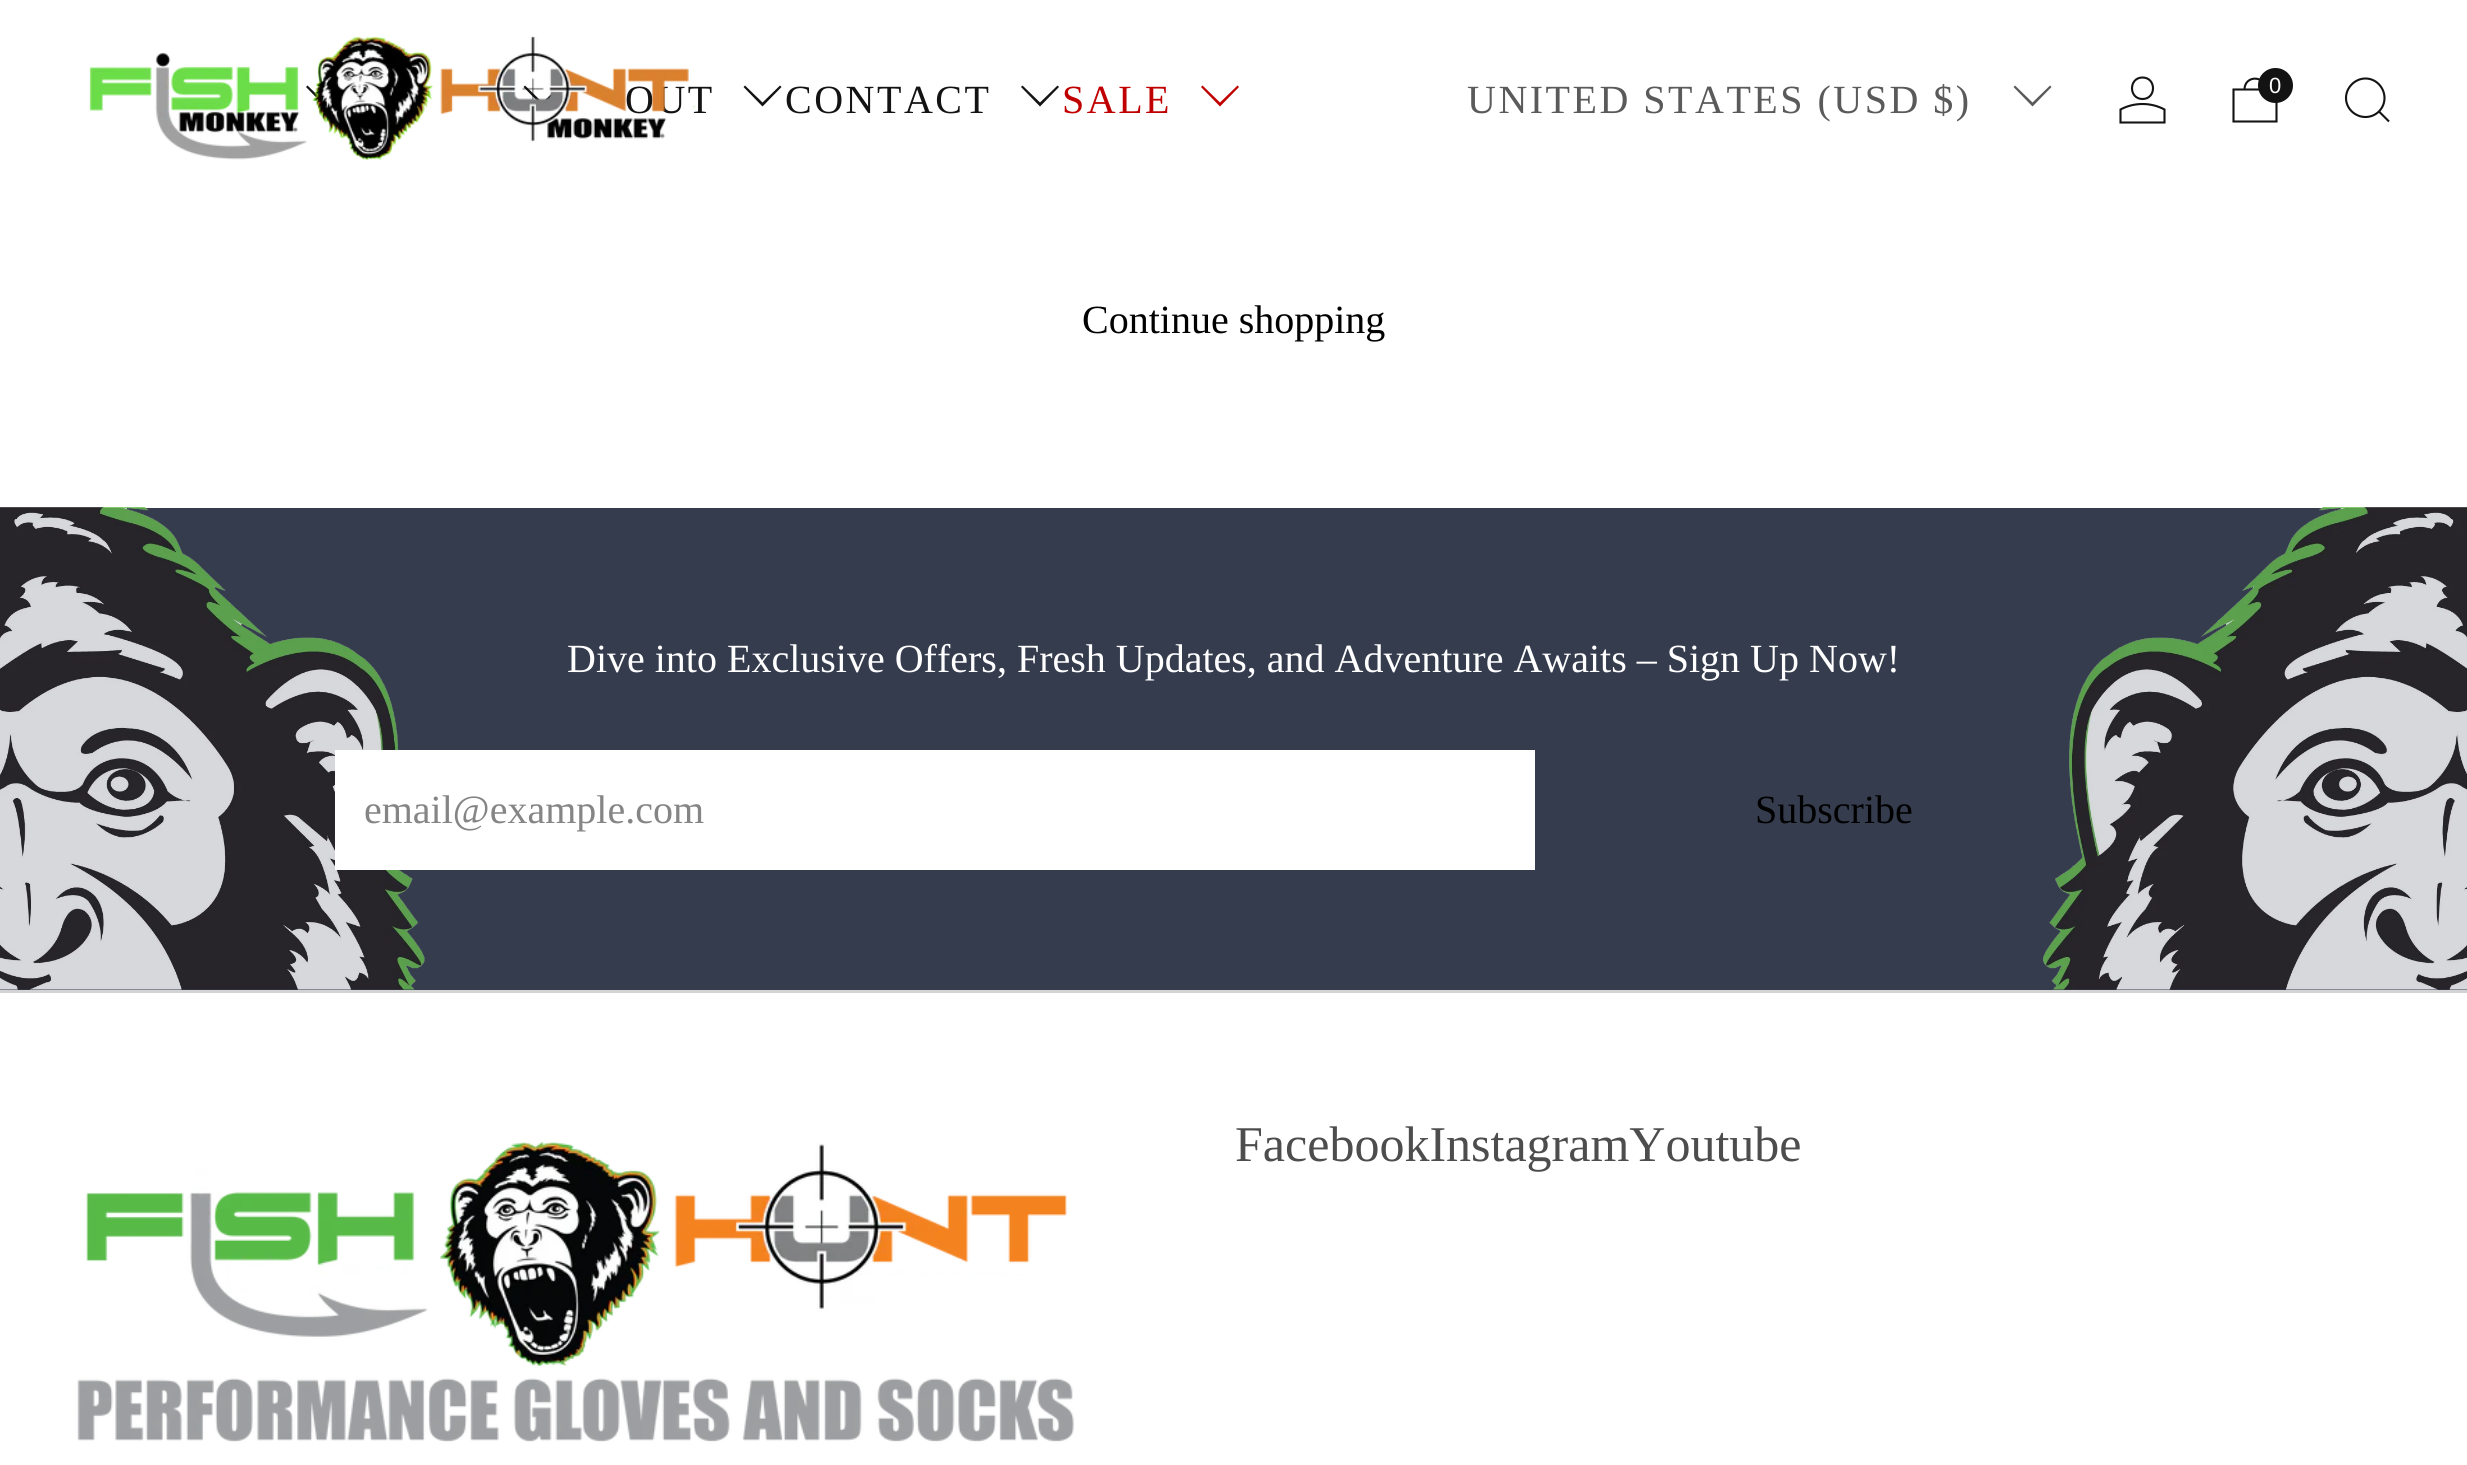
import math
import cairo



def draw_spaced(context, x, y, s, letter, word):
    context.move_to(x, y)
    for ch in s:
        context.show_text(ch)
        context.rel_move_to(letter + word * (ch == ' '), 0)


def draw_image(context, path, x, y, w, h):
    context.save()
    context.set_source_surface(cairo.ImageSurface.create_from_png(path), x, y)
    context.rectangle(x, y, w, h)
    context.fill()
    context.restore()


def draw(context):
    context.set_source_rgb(1, 1, 1)
    context.paint()
    context.set_source_rgb(19 / 255, 19 / 255, 19 / 255)
    context.new_path()
    context.move_to(307.5, 85.5)
    context.line_to(306, 87)
    context.line_to(325, 106.5)
    context.line_to(344, 87)
    context.line_to(342.5, 85.5)
    context.line_to(325, 102.5)
    context.close_path()
    context.fill()
    context.new_path()
    context.move_to(525, 85.5)
    context.line_to(523.5, 87)
    context.line_to(542.5, 106.5)
    context.line_to(561.5, 87)
    context.line_to(560, 85.5)
    context.line_to(542.5, 102.5)
    context.close_path()
    context.fill()
    context.new_path()
    context.move_to(745, 85.5)
    context.line_to(743.5, 87)
    context.line_to(762.5, 106.5)
    context.line_to(781.5, 87)
    context.line_to(780, 85.5)
    context.line_to(762.5, 102.5)
    context.close_path()
    context.fill()
    context.new_path()
    context.move_to(1022.5, 85.5)
    context.line_to(1021, 87)
    context.line_to(1040, 106.5)
    context.line_to(1059, 87)
    context.line_to(1057.5, 85.5)
    context.line_to(1040, 102.5)
    context.close_path()
    context.fill()
    context.set_source_rgb(192 / 255, 0, 0)
    context.new_path()
    context.move_to(1202.5, 85.5)
    context.line_to(1201, 87)
    context.line_to(1220, 106.5)
    context.line_to(1239, 87)
    context.line_to(1237.5, 85.5)
    context.line_to(1220, 102.5)
    context.close_path()
    context.fill()
    context.set_source_rgb(90 / 255, 90 / 255, 90 / 255)
    context.new_path()
    context.move_to(2015, 85.5)
    context.line_to(2013.5, 87)
    context.line_to(2032.5, 106.5)
    context.line_to(2051.5, 87)
    context.line_to(2050, 85.5)
    context.line_to(2032.5, 102.5)
    context.close_path()
    context.fill()
    context.new_path()
    context.move_to(2142.5, 104)
    context.curve_to(2134.5, 104, 2127, 106, 2120.5, 109.5)
    context.line_to(2120.5, 122.5)
    context.line_to(2164.5, 122.5)
    context.line_to(2164.5, 109.5)
    context.curve_to(2158, 106, 2150.5, 104, 2142.5, 104)
    context.close_path()
    context.move_to(2142.5, 99)
    context.curve_to(2156.5, 99, 2156.5, 77.5, 2142.5, 77.5)
    context.curve_to(2128.5, 77.5, 2128.5, 99, 2142.5, 99)
    context.close_path()
    context.set_source_rgb(19 / 255, 19 / 255, 19 / 255)
    context.set_line_width(2.1)
    context.stroke()
    context.new_path()
    context.move_to(2233.5, 89.5)
    context.line_to(2276.5, 89.5)
    context.line_to(2276.5, 121.5)
    context.line_to(2233.5, 121.5)
    context.close_path()
    context.move_to(2265.5, 89.5)
    context.curve_to(2265.5, 75, 2244.5, 75, 2244.5, 89.5)
    context.stroke()
    context.arc(2275.5, 85.5, 17.5, 0, 2 * math.pi)
    context.fill()
    context.new_path()
    context.move_to(2365.5, 117)
    context.curve_to(2376, 117, 2384.5, 108.5, 2384.5, 98)
    context.curve_to(2384.5, 87.5, 2376, 78.5, 2365.5, 78.5)
    context.curve_to(2355, 78.5, 2346, 87.5, 2346, 98)
    context.curve_to(2346, 108.5, 2355, 117, 2365.5, 117)
    context.close_path()
    context.move_to(2379, 111.5)
    context.line_to(2389, 121.5)
    context.stroke()
    context.set_source_rgb(53 / 255, 60 / 255, 78 / 255)
    context.rectangle(0, 508, 2467, 482)
    context.fill()
    draw_image(context, "images/2.png", 0, 507, 2467, 483)
    context.set_source_rgb(1, 1, 1)
    context.rectangle(335, 750, 1200, 120)
    context.fill()
    context.set_source_rgb(211 / 255, 211 / 255, 211 / 255)
    context.rectangle(0, 990, 2467, 3)
    context.fill()
    draw_image(context, "images/3.png", 77, 1142, 997, 300)
    context.select_font_face("Liberation Serif")
    context.set_font_size(40)
    context.set_source_rgb(19 / 255, 19 / 255, 19 / 255)
    draw_spaced(context, 625, 113, "OUT", 2.5, 0)
    draw_image(context, "images/1.png", 89, 36, 607, 124)
    draw_spaced(context, 785, 113, "CONTACT", 2.5, 0)
    context.set_source_rgb(192 / 255, 0, 0)
    draw_spaced(context, 1062, 113, "SALE", 2.5, 0)
    context.set_source_rgb(90 / 255, 90 / 255, 90 / 255)
    draw_spaced(context, 1467, 113, "UNITED STATES (USD $)", 2.5, 0)
    context.select_font_face("Liberation Sans")
    context.set_font_size(22)
    context.set_source_rgb(1, 1, 1)
    context.move_to(2269, 93)
    context.show_text("0")
    context.select_font_face("Liberation Serif")
    context.set_font_size(40)
    context.set_source_rgb(0, 0, 0)
    context.move_to(1082, 333)
    context.show_text("Continue shopping")
    context.set_source_rgb(1, 1, 1)
    context.move_to(567, 672)
    context.show_text("Dive into Exclusive Offers, Fresh Updates, and Adventure Awaits – Sign Up Now!")
    context.set_source_rgb(133 / 255, 133 / 255, 133 / 255)
    context.move_to(364, 823)
    context.show_text("email@example.com")
    context.set_source_rgb(0, 0, 0)
    context.move_to(1755, 823)
    context.show_text("Subscribe")
    context.set_font_size(50)
    context.set_source_rgb(77 / 255, 77 / 255, 77 / 255)
    context.move_to(1235, 1161)
    context.show_text("FacebookInstagramYoutube")


surface = cairo.ImageSurface(cairo.Format.RGB24, 2467, 1465)
context = cairo.Context(surface)
options = cairo.FontOptions()
options.set_hint_metrics(cairo.HintMetrics.OFF)
options.set_hint_style(cairo.HintStyle.NONE)
context.set_font_options(options)
context.set_miter_limit(4)
draw(context)
surface.write_to_png("out.png")
